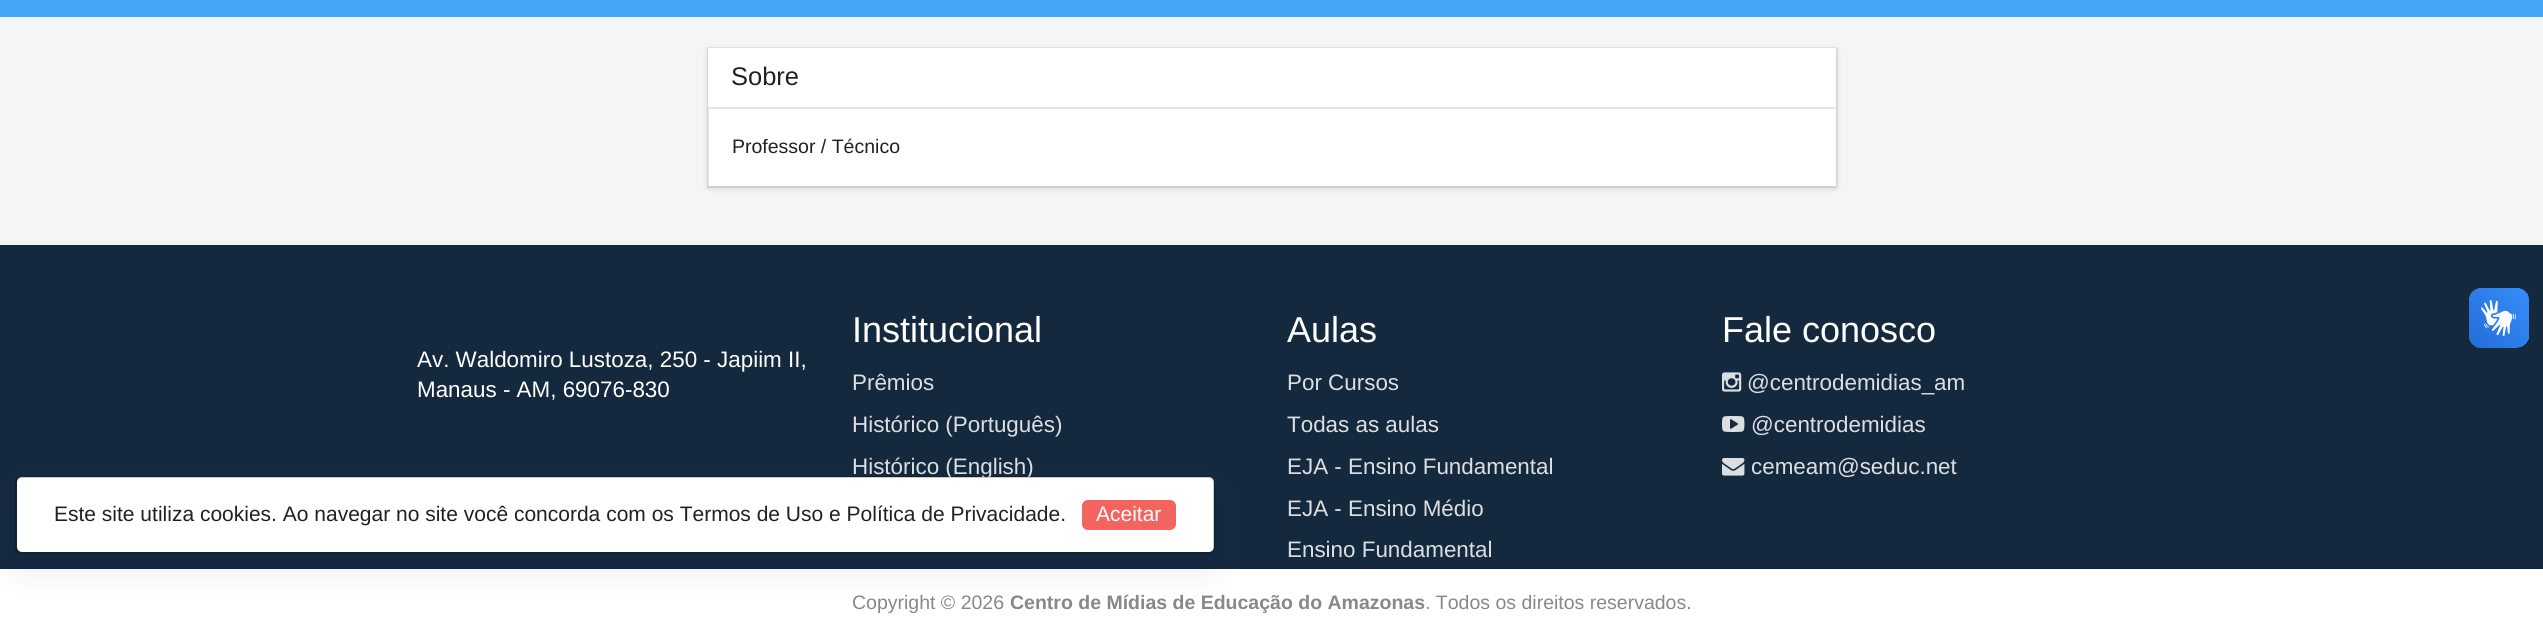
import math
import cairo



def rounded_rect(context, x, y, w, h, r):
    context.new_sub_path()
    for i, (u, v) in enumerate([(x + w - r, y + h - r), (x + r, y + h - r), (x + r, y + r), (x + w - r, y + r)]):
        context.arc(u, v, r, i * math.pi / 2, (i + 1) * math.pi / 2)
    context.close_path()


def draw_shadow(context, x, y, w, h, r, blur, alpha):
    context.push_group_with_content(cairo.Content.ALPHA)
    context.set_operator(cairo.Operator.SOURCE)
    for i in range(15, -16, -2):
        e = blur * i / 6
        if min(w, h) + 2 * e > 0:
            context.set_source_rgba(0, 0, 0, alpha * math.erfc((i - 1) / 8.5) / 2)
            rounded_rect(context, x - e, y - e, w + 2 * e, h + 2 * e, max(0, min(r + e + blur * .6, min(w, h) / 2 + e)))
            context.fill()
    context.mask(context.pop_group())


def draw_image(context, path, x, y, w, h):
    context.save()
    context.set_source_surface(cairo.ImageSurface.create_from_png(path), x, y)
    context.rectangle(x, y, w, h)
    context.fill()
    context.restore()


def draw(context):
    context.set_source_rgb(245 / 255, 245 / 255, 245 / 255)
    context.paint()
    context.set_source_rgb(66 / 255, 165 / 255, 245 / 255)
    context.rectangle(0, 0, 2543, 17)
    context.fill()
    context.set_source_rgb(1, 1, 1)
    context.rectangle(709, 109, 1127, 77)
    context.fill()
    context.rectangle(708, 48, 1129, 139)
    context.set_source_rgb(226 / 255, 233 / 255, 230 / 255)
    context.stroke()
    context.save()
    context.set_fill_rule(cairo.FillRule.EVEN_ODD)
    context.new_path()
    context.move_to(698, 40)
    context.line_to(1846, 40)
    context.line_to(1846, 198)
    context.line_to(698, 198)
    context.close_path()
    context.move_to(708, 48)
    context.line_to(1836, 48)
    context.line_to(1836, 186)
    context.line_to(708, 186)
    context.close_path()
    context.clip()
    context.set_source_rgb(0, 0, 0)
    draw_shadow(context, 708, 50, 1128, 138, 0, 3, 0.17)
    context.restore()
    context.set_source_rgb(1, 1, 1)
    context.rectangle(708, 48, 1128, 59)
    context.fill()
    context.set_source_rgb(226 / 255, 233 / 255, 230 / 255)
    context.rectangle(708, 107, 1128, 2)
    context.fill()
    context.set_source_rgb(21 / 255, 41 / 255, 62 / 255)
    context.rectangle(0, 245, 2543, 324)
    context.fill()
    draw_image(context, "images/1.png", 1722, 372, 20, 20)
    draw_image(context, "images/2.png", 1722, 416, 23, 16)
    draw_image(context, "images/3.png", 1722, 458, 23, 18)
    draw_image(context, "images/4.png", 2469, 288, 60, 60)
    draw_image(context, "images/5.png", 2469, 288, 60, 60)
    context.set_source_rgb(0, 0, 0)
    draw_shadow(context, 5, 569, 2535, 58, 0, 4, 0.15)
    context.set_source_rgb(1, 1, 1)
    context.rectangle(0, 569, 2543, 66)
    context.fill()
    context.save()
    context.set_fill_rule(cairo.FillRule.EVEN_ODD)
    context.new_path()
    context.move_to(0, 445)
    context.line_to(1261, 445)
    context.line_to(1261, 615)
    context.line_to(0, 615)
    context.close_path()
    context.move_to(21, 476)
    context.line_to(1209, 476)
    context.curve_to(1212.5, 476, 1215, 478.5, 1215, 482)
    context.line_to(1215, 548)
    context.curve_to(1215, 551.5, 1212.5, 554, 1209, 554)
    context.line_to(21, 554)
    context.curve_to(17.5, 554, 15, 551.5, 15, 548)
    context.line_to(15, 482)
    context.curve_to(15, 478.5, 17.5, 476, 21, 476)
    context.close_path()
    context.clip()
    context.set_source_rgb(3 / 255, 27 / 255, 78 / 255)
    draw_shadow(context, 15, 491, 1200, 78, 6, 15, 0.1)
    context.restore()
    context.select_font_face("Liberation Sans")
    context.set_font_size(25.5)
    context.set_source_rgb(33 / 255, 33 / 255, 33 / 255)
    context.move_to(731, 85)
    context.show_text("Sobre")
    context.set_font_size(19.5)
    context.move_to(732, 153)
    context.show_text("Professor / Técnico")
    context.set_font_size(22.4)
    context.set_source_rgb(1, 1, 1)
    context.move_to(417, 367)
    context.show_text("Av. Waldomiro Lustoza, 250 - Japiim II,")
    context.move_to(417, 397)
    context.show_text("Manaus - AM, 69076-830")
    context.set_font_size(36)
    context.move_to(852, 342)
    context.show_text("Institucional")
    context.set_font_size(22.4)
    context.set_source_rgb(220 / 255, 223 / 255, 226 / 255)
    context.move_to(852, 390)
    context.show_text("Prêmios")
    context.move_to(852, 432)
    context.show_text("Histórico (Português)")
    context.move_to(852, 474)
    context.show_text("Histórico (English)")
    context.set_font_size(36)
    context.set_source_rgb(1, 1, 1)
    context.move_to(1287, 342)
    context.show_text("Aulas")
    context.set_font_size(22.4)
    context.set_source_rgb(220 / 255, 223 / 255, 226 / 255)
    context.move_to(1287, 390)
    context.show_text("Por Cursos")
    context.move_to(1287, 432)
    context.show_text("Todas as aulas")
    context.move_to(1287, 474)
    context.show_text("EJA - Ensino Fundamental")
    context.move_to(1287, 516)
    context.show_text("EJA - Ensino Médio")
    context.move_to(1287, 557)
    context.show_text("Ensino Fundamental")
    context.set_font_size(36)
    context.set_source_rgb(1, 1, 1)
    context.move_to(1722, 342)
    context.show_text("Fale conosco")
    context.set_font_size(22.4)
    context.set_source_rgb(220 / 255, 223 / 255, 226 / 255)
    context.move_to(1747, 390)
    context.show_text("@centrodemidias_am")
    context.move_to(1751, 432)
    context.show_text("@centrodemidias")
    context.move_to(1751, 474)
    context.show_text("cemeam@seduc.net")
    context.set_source_rgb(1, 1, 1)
    rounded_rect(context, 17, 477, 1197, 75, 5)
    context.fill()
    rounded_rect(context, 16, 477, 1198, 76, 5)
    context.set_source_rgba(0, 0, 0, 0.2)
    context.stroke()
    context.set_font_size(21)
    context.set_source_rgb(33 / 255, 33 / 255, 33 / 255)
    context.move_to(54, 521)
    context.show_text("Este site utiliza cookies. Ao navegar no site você concorda com os Termos de Uso e Política de Privacidade.")
    context.set_source_rgb(244 / 255, 100 / 255, 95 / 255)
    rounded_rect(context, 1082, 500, 94, 30, 6)
    context.fill()
    context.set_source_rgb(1, 1, 1)
    context.move_to(1096, 521)
    context.show_text("Aceitar")
    context.set_font_size(19.5)
    context.set_source_rgb(136 / 255, 136 / 255, 136 / 255)
    context.move_to(852, 609)
    context.show_text("Copyright © 2026")
    context.select_font_face("Liberation Sans", cairo.FontSlant.NORMAL, cairo.FontWeight.BOLD)
    context.move_to(1010, 609)
    context.show_text("Centro de Mídias de Educação do Amazonas")
    context.select_font_face("Liberation Sans")
    context.move_to(1425, 609)
    context.show_text(". Todos os direitos reservados.")


surface = cairo.ImageSurface(cairo.Format.RGB24, 2543, 635)
context = cairo.Context(surface)
options = cairo.FontOptions()
options.set_hint_metrics(cairo.HintMetrics.OFF)
options.set_hint_style(cairo.HintStyle.NONE)
context.set_font_options(options)
context.set_miter_limit(4)
draw(context)
surface.write_to_png("out.png")
